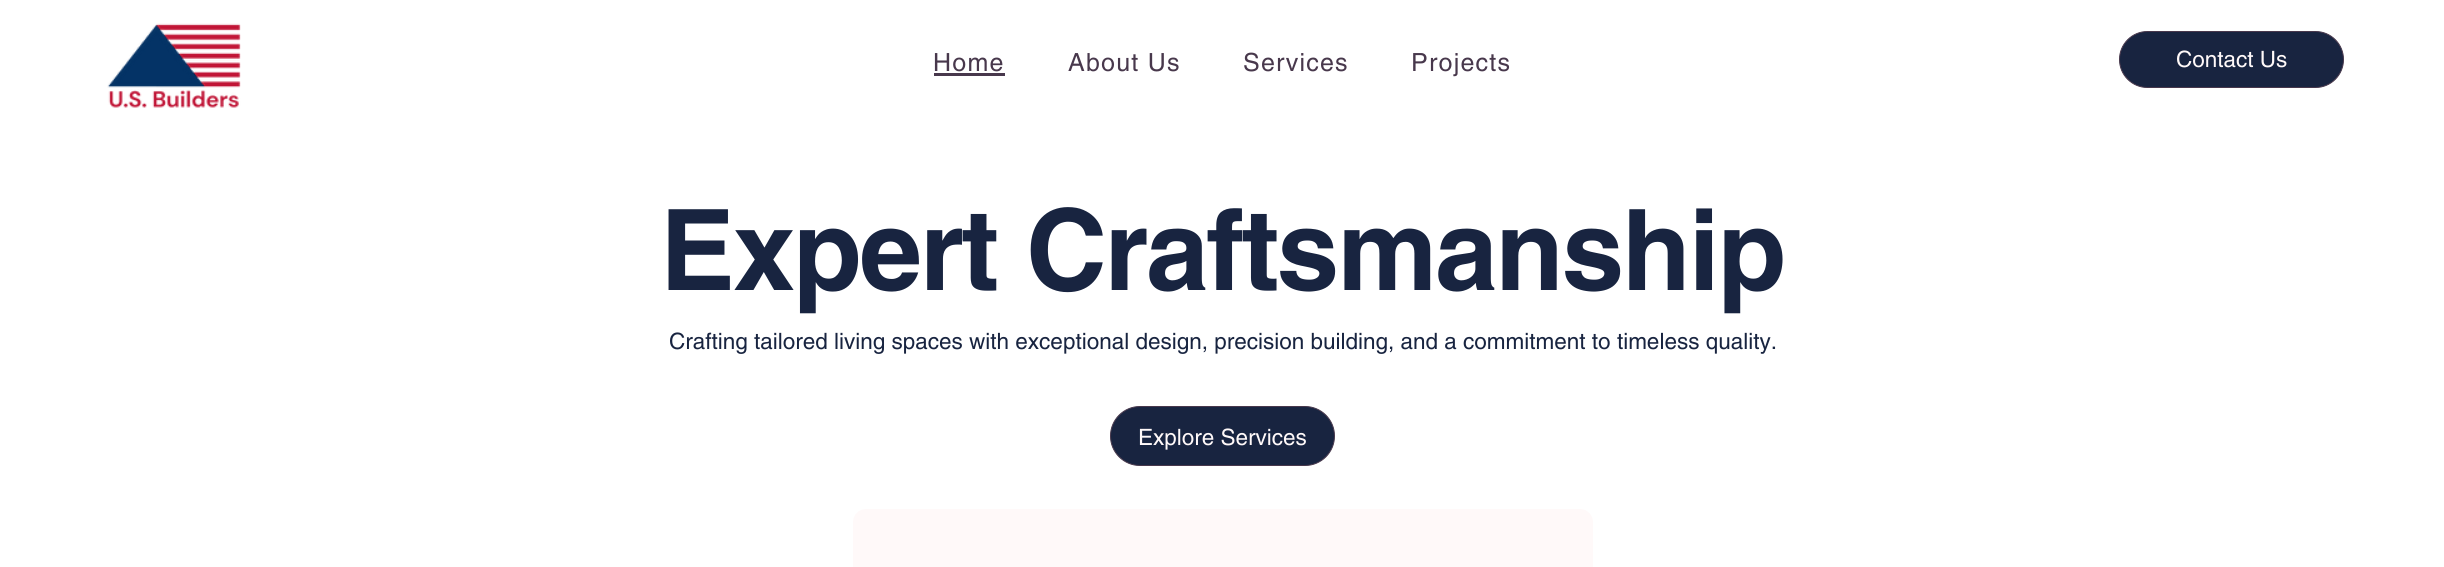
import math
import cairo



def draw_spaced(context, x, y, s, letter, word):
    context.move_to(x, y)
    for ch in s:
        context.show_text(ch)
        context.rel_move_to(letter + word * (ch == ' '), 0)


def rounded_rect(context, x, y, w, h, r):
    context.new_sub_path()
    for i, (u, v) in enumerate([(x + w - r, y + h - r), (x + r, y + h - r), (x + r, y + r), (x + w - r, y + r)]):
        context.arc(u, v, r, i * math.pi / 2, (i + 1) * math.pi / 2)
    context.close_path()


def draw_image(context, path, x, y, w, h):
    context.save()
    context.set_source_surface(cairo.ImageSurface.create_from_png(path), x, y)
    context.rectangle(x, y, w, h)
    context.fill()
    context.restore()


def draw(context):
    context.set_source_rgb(1, 1, 1)
    context.paint()
    draw_image(context, "images/1.png", 107, 23, 134, 85)
    context.set_source_rgb(72 / 255, 56 / 255, 76 / 255)
    context.rectangle(934, 73, 71, 3)
    context.fill()
    context.set_source_rgb(24 / 255, 36 / 255, 64 / 255)
    rounded_rect(context, 2119.5, 31.5, 224, 56, 28)
    context.fill_preserve()
    context.set_source_rgb(72 / 255, 56 / 255, 76 / 255)
    context.set_line_width(1)
    context.stroke()
    context.set_source_rgb(24 / 255, 36 / 255, 64 / 255)
    rounded_rect(context, 1110.5, 406.5, 224, 59, 29.5)
    context.fill_preserve()
    context.set_source_rgb(72 / 255, 56 / 255, 76 / 255)
    context.stroke()
    context.set_source_rgb(1, 249 / 255, 249 / 255)
    rounded_rect(context, 853, 509, 740, 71, 13)
    context.fill()
    context.select_font_face("helvetica")
    context.set_font_size(25)
    context.set_source_rgb(72 / 255, 56 / 255, 76 / 255)
    draw_spaced(context, 933, 71, "Home", 1.25, 0)
    draw_spaced(context, 1068, 71, "About Us", 1.25, 0)
    draw_spaced(context, 1243, 71, "Services", 1.25, 0)
    draw_spaced(context, 1411, 71, "Projects", 1.25, 0)
    context.set_font_size(22.5)
    context.set_source_rgb(1, 249 / 255, 249 / 255)
    context.move_to(2176, 67)
    context.show_text("Contact Us")
    context.select_font_face("helvetica", cairo.FontSlant.NORMAL, cairo.FontWeight.BOLD)
    context.set_font_size(112.5)
    context.set_source_rgb(24 / 255, 36 / 255, 64 / 255)
    draw_spaced(context, 660, 290, "Expert Craftsmanship", -2.25, 0)
    context.select_font_face("helvetica")
    context.set_font_size(22.5)
    context.move_to(669, 349)
    context.show_text("Crafting tailored living spaces with exceptional design, precision building, and a commitment to timeless quality.")
    context.set_source_rgb(1, 249 / 255, 249 / 255)
    context.move_to(1138, 445)
    context.show_text("Explore Services")


surface = cairo.ImageSurface(cairo.Format.RGB24, 2444, 567)
context = cairo.Context(surface)
options = cairo.FontOptions()
options.set_hint_metrics(cairo.HintMetrics.OFF)
options.set_hint_style(cairo.HintStyle.NONE)
context.set_font_options(options)
context.set_miter_limit(4)
draw(context)
surface.write_to_png("out.png")
